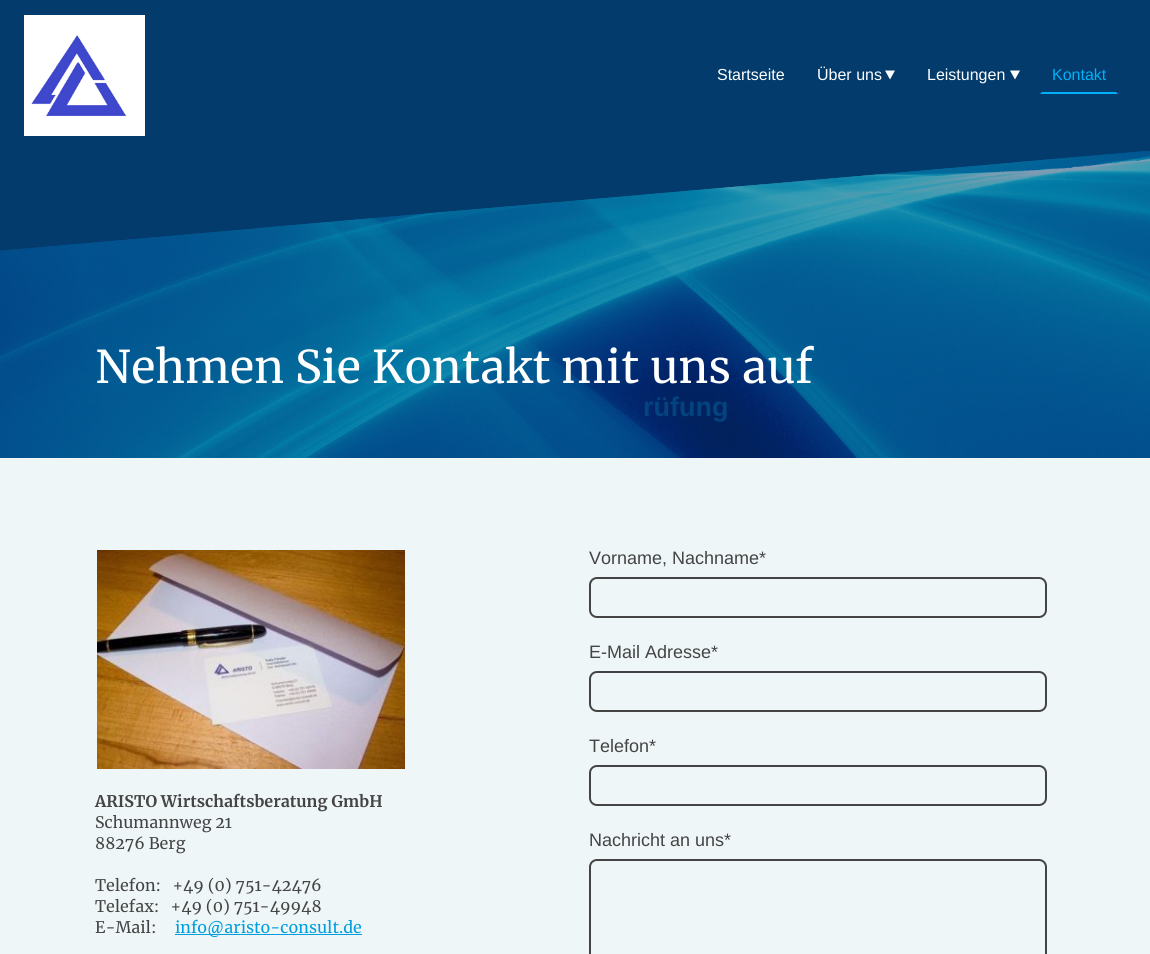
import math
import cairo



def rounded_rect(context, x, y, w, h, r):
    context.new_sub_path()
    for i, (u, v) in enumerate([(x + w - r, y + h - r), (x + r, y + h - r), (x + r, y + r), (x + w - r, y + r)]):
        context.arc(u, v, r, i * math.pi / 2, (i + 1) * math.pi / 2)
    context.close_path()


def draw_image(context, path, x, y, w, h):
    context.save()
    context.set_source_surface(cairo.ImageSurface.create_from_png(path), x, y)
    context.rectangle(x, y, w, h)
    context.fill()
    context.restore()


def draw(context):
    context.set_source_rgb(2 / 255, 59 / 255, 108 / 255)
    context.paint()
    draw_image(context, "images/1.png", 24, 15, 121, 121)
    context.set_source_rgb(1, 1, 1)
    context.new_path()
    context.move_to(895, 70.5)
    context.line_to(890, 79.5)
    context.line_to(885, 70.5)
    context.close_path()
    context.fill()
    context.new_path()
    context.move_to(1020, 70.5)
    context.line_to(1015, 79.5)
    context.line_to(1010, 70.5)
    context.close_path()
    context.fill()
    context.set_source_rgb(1 / 255, 176 / 255, 246 / 255)
    context.new_path()
    context.move_to(1118, 94)
    context.line_to(1040, 94)
    context.line_to(1042, 92)
    context.line_to(1116, 92)
    context.close_path()
    context.fill()
    draw_image(context, "images/2.png", 0, 151, 1150, 307)
    context.set_source_rgb(239 / 255, 246 / 255, 248 / 255)
    context.rectangle(0, 458, 1150, 496)
    context.fill()
    draw_image(context, "images/3.png", 97, 550, 308, 219)
    rounded_rect(context, 590, 578, 456, 39, 7)
    context.set_source_rgb(68 / 255, 68 / 255, 68 / 255)
    context.stroke()
    rounded_rect(context, 590, 672, 456, 39, 7)
    context.stroke()
    rounded_rect(context, 590, 766, 456, 39, 7)
    context.stroke()
    rounded_rect(context, 590, 860, 456, 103, 7)
    context.stroke()
    context.set_source_rgb(1 / 255, 158 / 255, 221 / 255)
    context.rectangle(175, 934, 187, 1)
    context.fill()
    context.select_font_face("Liberation Sans")
    context.set_font_size(16)
    context.set_source_rgb(1, 1, 1)
    context.move_to(717, 80)
    context.show_text("Startseite")
    context.move_to(817, 80)
    context.show_text("Über uns")
    context.move_to(927, 80)
    context.show_text("Leistungen")
    context.set_source_rgb(1 / 255, 176 / 255, 246 / 255)
    context.move_to(1052, 80)
    context.show_text("Kontakt")
    context.select_font_face("Merriweather")
    context.set_font_size(45)
    context.set_source_rgb(1, 1, 1)
    context.move_to(95, 383)
    context.show_text("Nehmen Sie Kontakt mit uns auf")
    context.select_font_face("Liberation Sans")
    context.set_font_size(18)
    context.set_source_rgb(68 / 255, 68 / 255, 68 / 255)
    context.move_to(589, 564)
    context.show_text("Vorname, Nachname*")
    context.move_to(589, 658)
    context.show_text("E-Mail Adresse*")
    context.move_to(589, 752)
    context.show_text("Telefon*")
    context.move_to(589, 846)
    context.show_text("Nachricht an uns*")
    context.select_font_face("Merriweather", cairo.FontSlant.NORMAL, cairo.FontWeight.BOLD)
    context.set_font_size(16)
    context.move_to(95, 807)
    context.show_text("ARISTO Wirtschaftsberatung GmbH")
    context.select_font_face("Merriweather")
    context.move_to(95, 828)
    context.show_text("Schumannweg 21")
    context.move_to(95, 849)
    context.show_text("88276 Berg")
    context.move_to(95, 891)
    context.show_text("Telefon:   +49 (0) 751-42476")
    context.move_to(95, 912)
    context.show_text("Telefax:   +49 (0) 751-49948")
    context.move_to(95, 933)
    context.show_text("E-Mail:")
    context.set_source_rgb(1 / 255, 158 / 255, 221 / 255)
    context.move_to(175, 933)
    context.show_text("info@aristo-consult.de")
    context.select_font_face("Liberation Sans", cairo.FontSlant.NORMAL, cairo.FontWeight.BOLD)
    context.set_font_size(27)
    context.set_source_rgb(2 / 255, 67 / 255, 128 / 255)
    context.move_to(643, 416)
    context.show_text("rüfung")


surface = cairo.ImageSurface(cairo.Format.RGB24, 1150, 954)
context = cairo.Context(surface)
options = cairo.FontOptions()
options.set_hint_metrics(cairo.HintMetrics.OFF)
options.set_hint_style(cairo.HintStyle.NONE)
context.set_font_options(options)
context.set_miter_limit(4)
draw(context)
surface.write_to_png("out.png")
